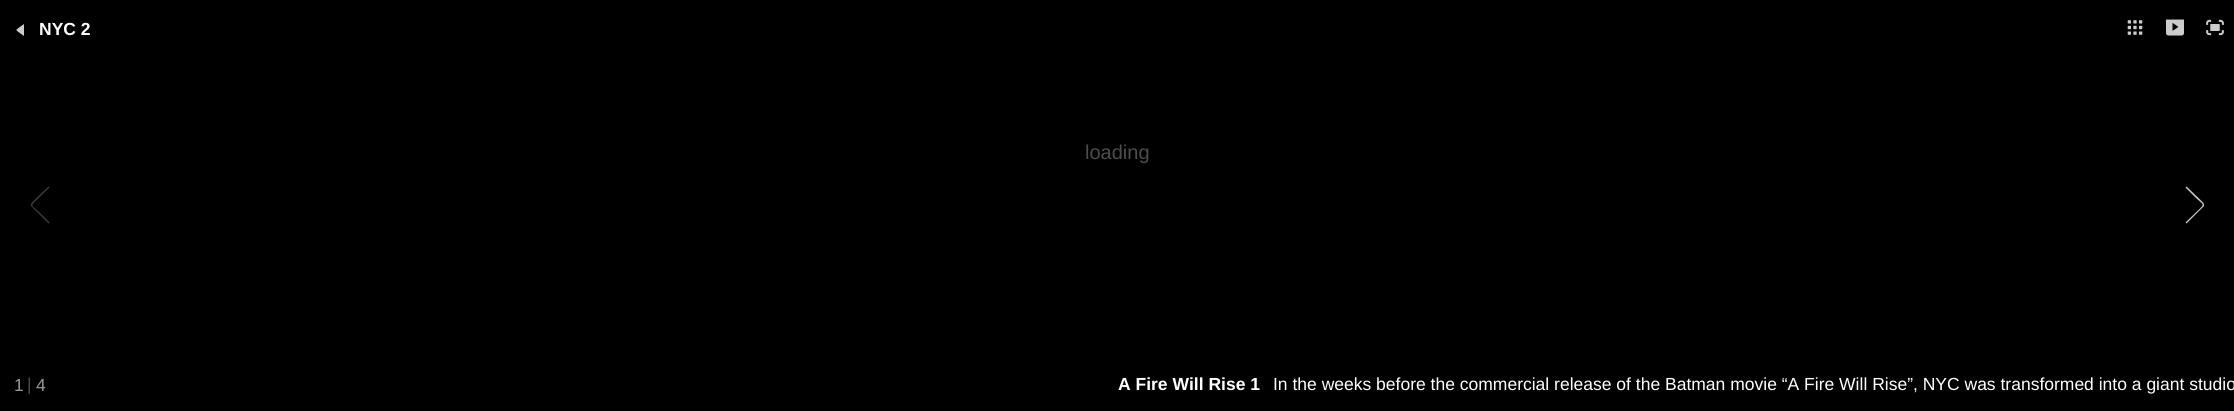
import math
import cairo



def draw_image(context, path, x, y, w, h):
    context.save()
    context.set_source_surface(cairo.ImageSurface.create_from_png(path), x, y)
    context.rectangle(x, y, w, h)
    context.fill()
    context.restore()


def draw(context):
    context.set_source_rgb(0, 0, 0)
    context.paint()
    context.set_source_rgb(204 / 255, 204 / 255, 204 / 255)
    context.new_path()
    context.move_to(24, 36)
    context.curve_to(14, 28.5, 14, 31.5, 24, 24)
    context.close_path()
    context.fill()
    draw_image(context, "images/1.png", 2127, 20, 16, 15)
    draw_image(context, "images/2.png", 2166, 19, 18, 17)
    draw_image(context, "images/3.png", 2206, 19, 18, 17)
    context.set_source_rgb(61 / 255, 61 / 255, 61 / 255)
    context.new_path()
    context.move_to(48.5, 223.5)
    context.line_to(31.5, 206.5)
    context.curve_to(29.5, 204, 33, 201.5, 34.5, 200)
    context.line_to(48.5, 186.5)
    context.line_to(49.5, 187.5)
    context.line_to(35.5, 201)
    context.curve_to(30, 206.5, 32, 205.5, 38.5, 211.5)
    context.line_to(49.5, 222.5)
    context.close_path()
    context.fill()
    context.set_source_rgb(204 / 255, 204 / 255, 204 / 255)
    context.new_path()
    context.move_to(2186.5, 186.5)
    context.line_to(2200.5, 200)
    context.curve_to(2202, 201.5, 2205.5, 204, 2203.5, 206.5)
    context.line_to(2186.5, 223.5)
    context.line_to(2185.5, 222.5)
    context.line_to(2199.5, 209)
    context.curve_to(2205, 203.5, 2203, 204.5, 2196.5, 198.5)
    context.line_to(2185.5, 187.5)
    context.close_path()
    context.fill()
    context.select_font_face("Liberation Sans", cairo.FontSlant.NORMAL, cairo.FontWeight.BOLD)
    context.set_font_size(17.5)
    context.set_source_rgb(1, 1, 1)
    context.move_to(39, 35)
    context.show_text("NYC 2")
    context.select_font_face("Liberation Sans")
    context.set_font_size(20)
    context.set_source_rgb(77 / 255, 77 / 255, 77 / 255)
    context.move_to(1085, 159)
    context.show_text("loading")
    context.set_font_size(17.5)
    context.set_source_rgb(153 / 255, 153 / 255, 153 / 255)
    context.move_to(14, 391)
    context.show_text("1")
    context.set_source_rgb(77 / 255, 77 / 255, 77 / 255)
    context.move_to(27, 390)
    context.show_text("|")
    context.set_source_rgb(153 / 255, 153 / 255, 153 / 255)
    context.move_to(36, 391)
    context.show_text("4")
    context.select_font_face("Liberation Sans", cairo.FontSlant.NORMAL, cairo.FontWeight.BOLD)
    context.set_source_rgb(1, 1, 1)
    context.move_to(1118, 390)
    context.show_text("A Fire Will Rise 1")
    context.select_font_face("Liberation Sans")
    context.move_to(1273, 390)
    context.show_text("In the weeks before the commercial release of the Batman movie “A Fire Will Rise”, NYC was transformed into a giant studio")


surface = cairo.ImageSurface(cairo.Format.RGB24, 2234, 411)
context = cairo.Context(surface)
options = cairo.FontOptions()
options.set_hint_metrics(cairo.HintMetrics.OFF)
options.set_hint_style(cairo.HintStyle.NONE)
context.set_font_options(options)
context.set_miter_limit(4)
draw(context)
surface.write_to_png("out.png")
